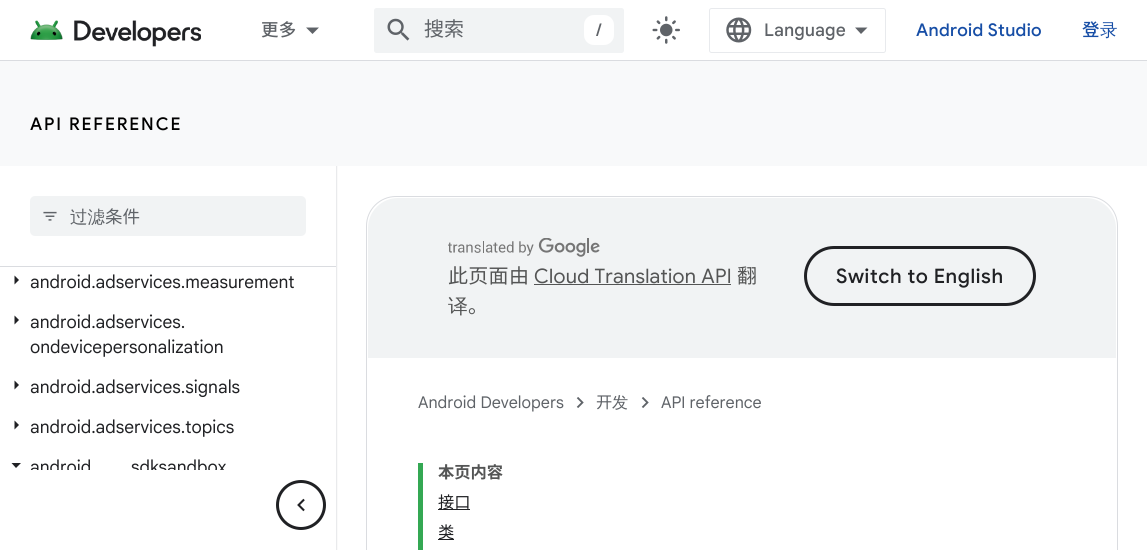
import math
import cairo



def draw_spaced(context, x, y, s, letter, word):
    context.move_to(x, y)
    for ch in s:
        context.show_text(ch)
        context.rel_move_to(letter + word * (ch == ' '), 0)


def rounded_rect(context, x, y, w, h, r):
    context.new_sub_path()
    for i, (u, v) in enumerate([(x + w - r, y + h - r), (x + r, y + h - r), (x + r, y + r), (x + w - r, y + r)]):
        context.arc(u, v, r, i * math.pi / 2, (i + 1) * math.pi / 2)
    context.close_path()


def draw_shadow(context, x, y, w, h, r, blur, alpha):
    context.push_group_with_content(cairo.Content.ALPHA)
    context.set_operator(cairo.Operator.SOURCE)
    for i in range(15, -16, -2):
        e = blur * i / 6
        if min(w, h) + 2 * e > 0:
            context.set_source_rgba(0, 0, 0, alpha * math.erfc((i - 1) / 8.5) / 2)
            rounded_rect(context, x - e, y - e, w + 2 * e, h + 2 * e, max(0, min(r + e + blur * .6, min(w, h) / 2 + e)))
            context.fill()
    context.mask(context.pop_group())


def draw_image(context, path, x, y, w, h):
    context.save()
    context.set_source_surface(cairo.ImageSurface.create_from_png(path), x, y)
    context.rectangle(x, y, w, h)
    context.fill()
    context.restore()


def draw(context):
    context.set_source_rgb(1, 1, 1)
    context.paint()
    context.save()
    context.rectangle(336, 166, 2, 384)
    context.clip()
    context.set_source_rgb(189 / 255, 193 / 255, 198 / 255)
    draw_shadow(context, 0, 1, 336, 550, 0, 1, 1)
    context.restore()
    context.set_source_rgb(1, 1, 1)
    context.rectangle(336, 0, 2, 60)
    context.fill()
    context.set_source_rgb(218 / 255, 220 / 255, 224 / 255)
    context.rectangle(0, 60, 1147, 1)
    context.fill()
    draw_image(context, "images/1.png", 30, 20, 171, 27)
    context.set_source_rgb(95 / 255, 99 / 255, 104 / 255)
    context.new_path()
    context.move_to(306, 27.5)
    context.line_to(319, 27.5)
    context.line_to(312.5, 34)
    context.close_path()
    context.fill()
    context.set_source_rgb(241 / 255, 243 / 255, 244 / 255)
    rounded_rect(context, 374, 8, 250, 45, 2.5)
    context.fill()
    draw_image(context, "images/2.png", 387, 18, 23, 23)
    context.set_source_rgb(1, 1, 1)
    rounded_rect(context, 584, 15, 30, 30, 10)
    context.fill()
    draw_image(context, "images/3.png", 652, 16, 28, 28)
    rounded_rect(context, 709.5, 8.5, 176, 44, 2)
    context.set_source_rgb(232 / 255, 234 / 255, 237 / 255)
    context.set_line_width(1)
    context.stroke()
    draw_image(context, "images/4.png", 726, 17, 26, 26)
    context.set_source_rgb(95 / 255, 99 / 255, 104 / 255)
    context.new_path()
    context.move_to(861, 34)
    context.line_to(855, 27.5)
    context.line_to(867.5, 27.5)
    context.close_path()
    context.fill()
    context.set_source_rgb(248 / 255, 249 / 255, 250 / 255)
    context.rectangle(0, 61, 1147, 105)
    context.fill()
    context.set_source_rgb(218 / 255, 220 / 255, 224 / 255)
    context.rectangle(0, 266, 336, 1)
    context.fill()
    context.set_source_rgb(241 / 255, 243 / 255, 244 / 255)
    rounded_rect(context, 30, 196, 276, 40, 5)
    context.fill()
    draw_image(context, "images/5.png", 43, 211, 14, 10)
    context.set_source_rgb(32 / 255, 33 / 255, 36 / 255)
    context.new_path()
    context.move_to(14.5, 284.5)
    context.line_to(14.5, 275.5)
    context.line_to(19, 280)
    context.close_path()
    context.fill()
    context.new_path()
    context.move_to(14.5, 324.5)
    context.line_to(14.5, 315.5)
    context.line_to(19, 320)
    context.close_path()
    context.fill()
    context.new_path()
    context.move_to(14.5, 389.5)
    context.line_to(14.5, 380.5)
    context.line_to(19, 385)
    context.close_path()
    context.fill()
    context.new_path()
    context.move_to(14.5, 429.5)
    context.line_to(14.5, 420.5)
    context.line_to(19, 425)
    context.close_path()
    context.fill()
    context.new_path()
    context.move_to(11.5, 463)
    context.line_to(21, 463)
    context.line_to(16, 468)
    context.close_path()
    context.fill()
    rounded_rect(context, 366.5, 196.5, 751, 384, 29.5)
    context.set_source_rgb(218 / 255, 220 / 255, 224 / 255)
    context.stroke()
    context.set_source_rgb(241 / 255, 243 / 255, 244 / 255)
    context.new_path()
    context.move_to(398, 198)
    context.line_to(1086, 198)
    context.curve_to(1102.5, 198, 1116, 211.5, 1116, 228)
    context.line_to(1116, 358)
    context.line_to(368, 358)
    context.line_to(368, 228)
    context.curve_to(368, 211.5, 381.5, 198, 398, 198)
    context.close_path()
    context.fill()
    draw_image(context, "images/6.png", 448, 238, 152, 19)
    context.set_source_rgb(84 / 255, 85 / 255, 85 / 255)
    context.rectangle(534, 284, 197, 1)
    context.fill()
    rounded_rect(context, 805.5, 247.5, 229, 57, 28.5)
    context.set_source_rgb(32 / 255, 33 / 255, 36 / 255)
    context.set_line_width(3)
    context.stroke()
    draw_image(context, "images/7.png", 576, 397, 8, 11)
    draw_image(context, "images/7.png", 641, 397, 8, 11)
    context.set_source_rgb(52 / 255, 168 / 255, 83 / 255)
    context.rectangle(418, 463, 5, 87)
    context.fill()
    context.set_source_rgb(32 / 255, 33 / 255, 36 / 255)
    context.rectangle(438, 509, 32, 1)
    context.fill()
    context.rectangle(438, 539, 16, 1)
    context.fill()
    context.arc(301, 505, 23.5, 0, 2 * math.pi)
    context.stroke()
    draw_image(context, "images/8.png", 297, 498, 8, 14)
    context.select_font_face("Noto Sans JP Medium")
    context.set_font_size(17.5)
    context.set_source_rgb(95 / 255, 99 / 255, 104 / 255)
    draw_spaced(context, 261, 36, "更多", 0.3, 0)
    context.select_font_face("Noto Sans JP")
    context.set_font_size(20)
    context.move_to(424, 36)
    context.show_text("搜索")
    context.select_font_face("Google Sans Medium")
    context.set_font_size(17.5)
    context.move_to(596, 36)
    context.show_text("/")
    context.select_font_face("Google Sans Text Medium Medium")
    context.move_to(764, 36)
    context.show_text("Language")
    context.select_font_face("Google Sans Medium")
    context.set_source_rgb(23 / 255, 78 / 255, 166 / 255)
    draw_spaced(context, 916, 36, "Android Studio", 0.3, 0)
    context.select_font_face("Noto Sans JP Medium")
    draw_spaced(context, 1082, 36, "登", 0.3, 0)
    context.select_font_face("WenQuanYi Zen Hei Medium")
    draw_spaced(context, 1100, 36, "录", 0.3, 0)
    context.select_font_face("Google Sans Medium")
    context.set_source_rgb(0, 0, 0)
    draw_spaced(context, 30, 130, "API REFERENCE", 1.9, 0)
    context.select_font_face("WenQuanYi Zen Hei Medium")
    context.set_source_rgb(95 / 255, 99 / 255, 104 / 255)
    context.move_to(70, 223)
    context.show_text("过滤")
    context.select_font_face("Noto Sans JP")
    context.move_to(105, 223)
    context.show_text("条件")
    context.select_font_face("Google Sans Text")
    context.set_source_rgb(32 / 255, 33 / 255, 36 / 255)
    context.move_to(30, 288)
    context.show_text("android.adservices.measurement")
    context.move_to(30, 328)
    context.show_text("android.adservices.")
    context.move_to(30, 353)
    context.show_text("ondevicepersonalization")
    context.move_to(30, 393)
    context.show_text("android.adservices.signals")
    context.move_to(30, 433)
    context.show_text("android.adservices.topics")
    context.move_to(30, 473)
    context.show_text("android")
    context.move_to(131, 473)
    context.show_text("sdksandbox")
    context.select_font_face("Noto Sans JP")
    context.set_font_size(20)
    context.set_source_rgb(84 / 255, 85 / 255, 85 / 255)
    draw_spaced(context, 448, 283, "此页面由", 0.3, 0)
    context.select_font_face("Google Sans")
    draw_spaced(context, 534, 283, "Cloud Translation API", 0.3, 0)
    context.select_font_face("Noto Sans JP")
    draw_spaced(context, 737, 283, "翻", 0.3, 0)
    context.select_font_face("WenQuanYi Zen Hei Medium")
    draw_spaced(context, 448, 313, "译", 0.3, 0)
    context.select_font_face("Noto Sans JP")
    draw_spaced(context, 468, 313, "。", 0.3, 0)
    context.select_font_face("Google Sans Medium")
    context.set_source_rgb(32 / 255, 33 / 255, 36 / 255)
    draw_spaced(context, 836, 283, "Switch to English", 0.6, 0)
    context.select_font_face("Google Sans Text")
    context.set_font_size(16.25)
    context.set_source_rgb(95 / 255, 99 / 255, 104 / 255)
    context.move_to(418, 408)
    context.show_text("Android Developers")
    context.select_font_face("Noto Sans JP")
    context.move_to(596, 408)
    context.show_text("开")
    context.select_font_face("WenQuanYi Zen Hei Medium")
    context.move_to(612, 408)
    context.show_text("发")
    context.select_font_face("Google Sans Text")
    context.move_to(661, 408)
    context.show_text("API reference")
    context.select_font_face("Noto Sans JP", cairo.FontSlant.NORMAL, cairo.FontWeight.BOLD)
    context.set_source_rgb(84 / 255, 85 / 255, 85 / 255)
    context.move_to(438, 478)
    context.show_text("本页内容")
    context.select_font_face("Noto Sans JP")
    context.set_source_rgb(32 / 255, 33 / 255, 36 / 255)
    context.move_to(438, 508)
    context.show_text("接口")
    context.move_to(438, 538)
    context.show_text("类")
    context.set_source_rgb(1, 1, 1)
    context.rectangle(30, 470, 196, 4)
    context.fill()


surface = cairo.ImageSurface(cairo.Format.RGB24, 1147, 550)
context = cairo.Context(surface)
options = cairo.FontOptions()
options.set_hint_metrics(cairo.HintMetrics.OFF)
options.set_hint_style(cairo.HintStyle.NONE)
context.set_font_options(options)
context.set_miter_limit(4)
draw(context)
surface.write_to_png("out.png")
